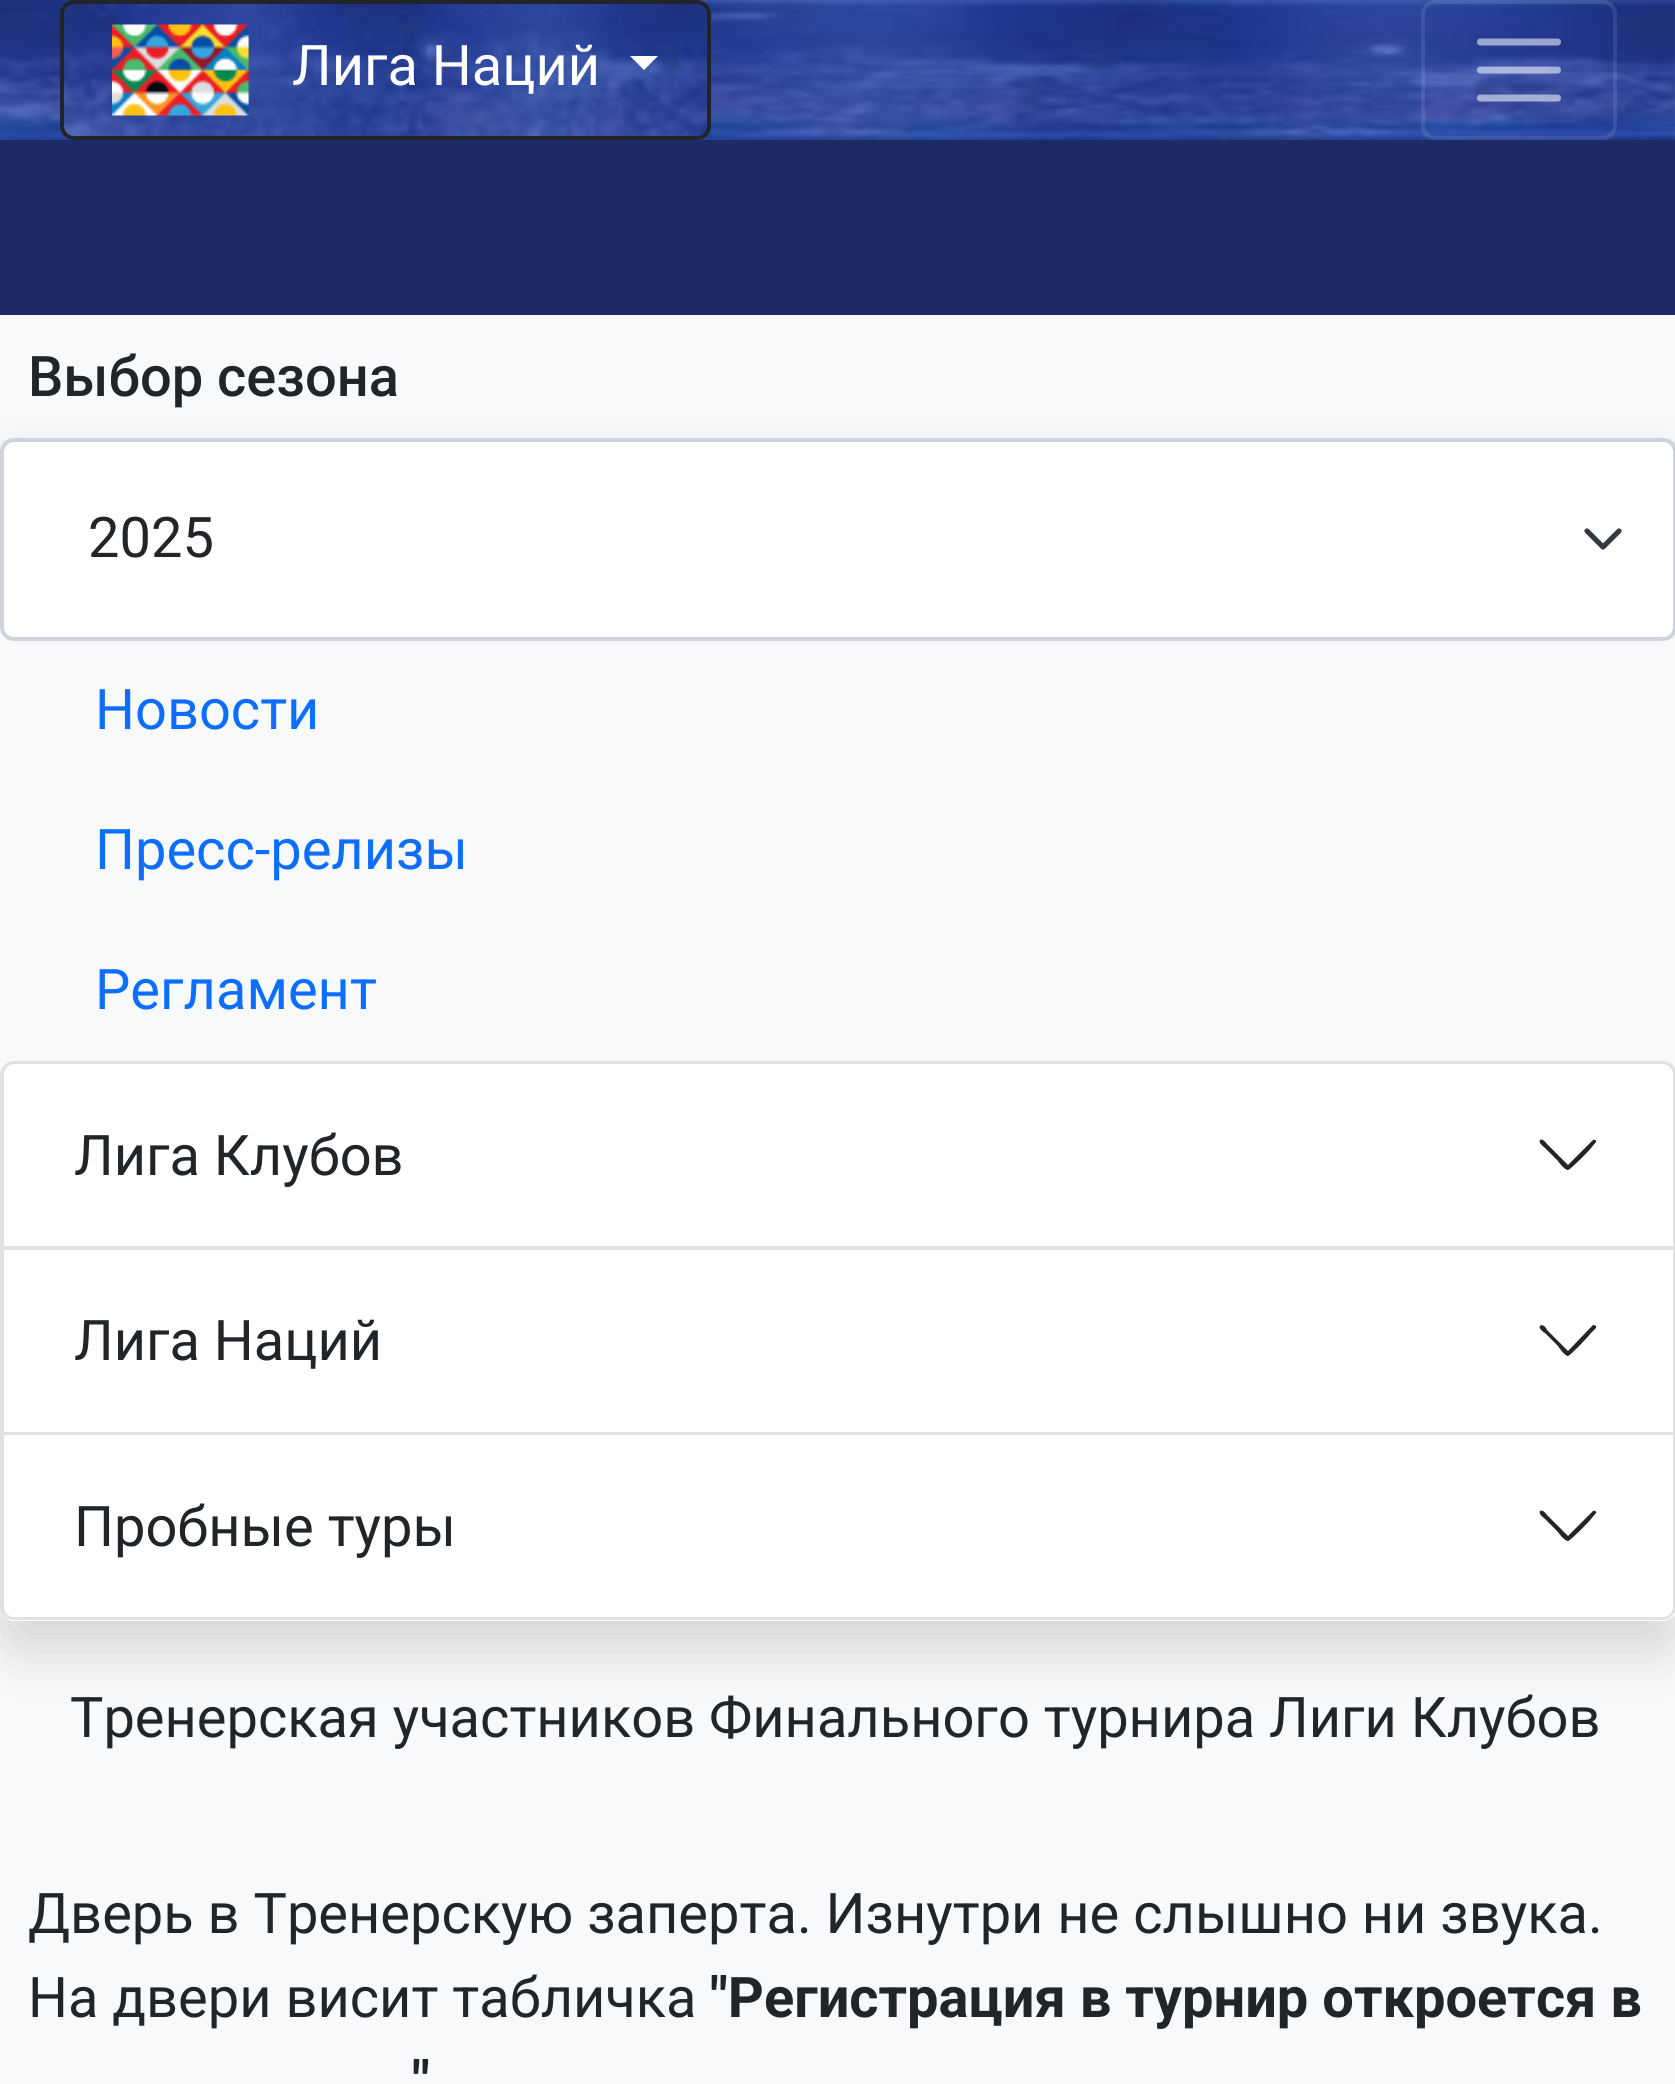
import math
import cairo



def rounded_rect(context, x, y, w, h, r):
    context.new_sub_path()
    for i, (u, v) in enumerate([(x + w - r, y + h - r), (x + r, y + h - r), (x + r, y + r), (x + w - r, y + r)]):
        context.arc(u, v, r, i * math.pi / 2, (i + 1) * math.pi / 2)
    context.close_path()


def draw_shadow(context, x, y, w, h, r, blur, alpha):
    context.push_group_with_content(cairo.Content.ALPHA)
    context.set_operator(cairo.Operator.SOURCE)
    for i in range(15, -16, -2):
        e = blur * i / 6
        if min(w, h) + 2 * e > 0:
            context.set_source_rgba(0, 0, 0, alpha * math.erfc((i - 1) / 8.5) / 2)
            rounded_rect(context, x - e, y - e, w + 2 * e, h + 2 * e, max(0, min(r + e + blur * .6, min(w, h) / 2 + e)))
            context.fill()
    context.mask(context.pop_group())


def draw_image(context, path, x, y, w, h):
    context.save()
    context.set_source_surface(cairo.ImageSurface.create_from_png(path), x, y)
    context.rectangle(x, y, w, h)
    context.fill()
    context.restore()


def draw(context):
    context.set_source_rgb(248 / 255, 249 / 255, 250 / 255)
    context.paint()
    draw_image(context, "images/1.png", 0, 0, 1675, 140)
    draw_image(context, "images/2.png", 60, 0, 651, 140)
    rounded_rect(context, 62, 2, 647, 136, 12)
    context.set_source_rgb(33 / 255, 37 / 255, 41 / 255)
    context.set_line_width(4)
    context.stroke()
    draw_image(context, "images/3.png", 112, 24, 138, 92)
    context.set_source_rgb(1, 1, 1)
    context.new_path()
    context.move_to(630, 56)
    context.line_to(658, 56)
    context.line_to(644, 70)
    context.close_path()
    context.fill()
    rounded_rect(context, 1423, 2, 192, 136, 12)
    context.set_source_rgba(1, 1, 1, 0.1)
    context.stroke()
    context.new_path()
    context.move_to(1480.5, 42)
    context.line_to(1557.5, 42)
    context.move_to(1480.5, 70)
    context.line_to(1557.5, 70)
    context.move_to(1480.5, 98)
    context.line_to(1557.5, 98)
    context.set_source_rgba(1, 1, 1, 0.55)
    context.set_line_width(7)
    context.set_line_cap(cairo.LineCap.ROUND)
    context.stroke()
    context.set_source_rgb(30 / 255, 42 / 255, 100 / 255)
    context.rectangle(0, 140, 1675, 175)
    context.fill()
    context.save()
    context.set_fill_rule(cairo.FillRule.EVEN_ODD)
    context.new_path()
    context.move_to(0, 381)
    context.line_to(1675, 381)
    context.line_to(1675, 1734)
    context.line_to(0, 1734)
    context.close_path()
    context.move_to(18, 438)
    context.line_to(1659, 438)
    context.curve_to(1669, 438, 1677, 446, 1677, 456)
    context.line_to(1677, 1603)
    context.curve_to(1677, 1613, 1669, 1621, 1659, 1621)
    context.line_to(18, 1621)
    context.curve_to(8, 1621, 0, 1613, 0, 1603)
    context.line_to(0, 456)
    context.curve_to(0, 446, 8, 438, 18, 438)
    context.close_path()
    context.clip()
    context.set_source_rgb(0, 0, 0)
    draw_shadow(context, 0, 466, 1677, 1183, 18, 28, 0.15)
    context.restore()
    context.set_source_rgb(1, 1, 1)
    rounded_rect(context, 0, 438, 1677, 203, 14)
    context.fill()
    context.new_path()
    context.move_to(1587, 531)
    context.line_to(1603, 547)
    context.line_to(1619, 531)
    context.set_source_rgb(52 / 255, 58 / 255, 64 / 255)
    context.set_line_width(5.2)
    context.set_line_join(cairo.LineJoin.ROUND)
    context.stroke()
    rounded_rect(context, 2, 440, 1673, 199, 12)
    context.set_source_rgb(206 / 255, 212 / 255, 218 / 255)
    context.set_line_width(4)
    context.set_line_cap(cairo.LineCap.BUTT)
    context.set_line_join(cairo.LineJoin.MITER)
    context.stroke()
    context.set_source_rgb(1, 1, 1)
    context.new_path()
    context.move_to(14, 1061)
    context.line_to(1663, 1061)
    context.curve_to(1670.5, 1061, 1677, 1067.5, 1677, 1075)
    context.line_to(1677, 1250)
    context.line_to(0, 1250)
    context.line_to(0, 1075)
    context.curve_to(0, 1067.5, 6.5, 1061, 14, 1061)
    context.close_path()
    context.fill()
    context.new_path()
    context.move_to(14, 1063)
    context.line_to(1663, 1063)
    context.curve_to(1669.5, 1063, 1675, 1068.5, 1675, 1075)
    context.line_to(1675, 1248)
    context.line_to(2, 1248)
    context.line_to(2, 1075)
    context.curve_to(2, 1068.5, 7.5, 1063, 14, 1063)
    context.close_path()
    context.set_source_rgba(0, 0, 0, 0.12)
    context.stroke()
    context.set_source_rgb(1, 1, 1)
    context.new_path()
    context.move_to(15, 1064)
    context.line_to(1662, 1064)
    context.curve_to(1668, 1064, 1673, 1069, 1673, 1075)
    context.line_to(1673, 1246)
    context.line_to(4, 1246)
    context.line_to(4, 1075)
    context.curve_to(4, 1069, 9, 1064, 15, 1064)
    context.close_path()
    context.fill()
    context.set_source_rgb(33 / 255, 37 / 255, 41 / 255)
    context.set_fill_rule(cairo.FillRule.EVEN_ODD)
    context.new_path()
    context.move_to(1540, 1140)
    context.curve_to(1543, 1138, 1547, 1144, 1547, 1144)
    context.line_to(1568, 1165)
    context.line_to(1593, 1140)
    context.curve_to(1595, 1139, 1597, 1141, 1596, 1142)
    context.line_to(1591, 1148)
    context.curve_to(1589, 1151, 1570, 1170, 1568, 1170)
    context.curve_to(1565, 1170, 1559, 1163, 1558, 1161)
    context.line_to(1545, 1148)
    context.curve_to(1544, 1147, 1538, 1143, 1540, 1140)
    context.close_path()
    context.fill()
    context.set_source_rgb(1, 1, 1)
    context.rectangle(0, 1250, 1675, 185)
    context.fill()
    context.set_source_rgb(223 / 255, 223 / 255, 223 / 255)
    context.set_fill_rule(cairo.FillRule.WINDING)
    context.new_path()
    context.move_to(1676, 1250)
    context.line_to(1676, 1435)
    context.line_to(1673, 1432)
    context.line_to(1673, 1250)
    context.close_path()
    context.fill()
    context.set_source_rgba(0, 0, 0, 0.12)
    context.new_path()
    context.move_to(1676, 1435)
    context.line_to(0, 1435)
    context.line_to(4, 1432)
    context.line_to(1673, 1432)
    context.close_path()
    context.fill()
    context.new_path()
    context.move_to(0, 1435)
    context.line_to(0, 1250)
    context.line_to(4, 1250)
    context.line_to(4, 1432)
    context.close_path()
    context.fill()
    context.set_source_rgb(33 / 255, 37 / 255, 41 / 255)
    context.set_fill_rule(cairo.FillRule.EVEN_ODD)
    context.new_path()
    context.move_to(1540, 1326)
    context.curve_to(1543, 1323, 1547, 1329, 1547, 1330)
    context.line_to(1568, 1351)
    context.line_to(1593, 1325)
    context.curve_to(1595, 1325, 1597, 1326, 1596, 1328)
    context.line_to(1591, 1333)
    context.curve_to(1589, 1336, 1570, 1356, 1568, 1356)
    context.curve_to(1565, 1356, 1559, 1348, 1558, 1346)
    context.line_to(1545, 1333)
    context.curve_to(1544, 1333, 1538, 1328, 1540, 1326)
    context.close_path()
    context.fill()
    context.set_source_rgb(1, 1, 1)
    context.new_path()
    context.move_to(0, 1435)
    context.line_to(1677, 1435)
    context.line_to(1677, 1607)
    context.curve_to(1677, 1614.5, 1670.5, 1621, 1663, 1621)
    context.line_to(14, 1621)
    context.curve_to(6.5, 1621, 0, 1614.5, 0, 1607)
    context.close_path()
    context.fill()
    context.set_source_rgba(0, 0, 0, 0.12)
    context.new_path()
    context.move_to(0, 1435)
    context.line_to(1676, 1435)
    context.line_to(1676, 1606)
    context.curve_to(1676, 1614, 1670, 1620, 1662, 1620)
    context.line_to(14, 1620)
    context.curve_to(6, 1620, 0, 1614, 0, 1606)
    context.close_path()
    context.move_to(4, 1435)
    context.line_to(1673, 1435)
    context.line_to(1673, 1606)
    context.curve_to(1673, 1612, 1668, 1617, 1662, 1617)
    context.line_to(14, 1617)
    context.curve_to(8, 1617, 4, 1612, 4, 1606)
    context.close_path()
    context.fill()
    context.set_source_rgb(1, 1, 1)
    context.new_path()
    context.move_to(4, 1435)
    context.line_to(1673, 1435)
    context.line_to(1673, 1606)
    context.curve_to(1673, 1612, 1668, 1617, 1662, 1617)
    context.line_to(15, 1617)
    context.curve_to(9, 1617, 4, 1612, 4, 1606)
    context.close_path()
    context.fill()
    context.set_source_rgb(33 / 255, 37 / 255, 41 / 255)
    context.new_path()
    context.move_to(1540, 1511)
    context.curve_to(1543, 1509, 1547, 1515, 1547, 1515)
    context.line_to(1568, 1536)
    context.line_to(1593, 1511)
    context.curve_to(1595, 1510, 1597, 1512, 1596, 1513)
    context.line_to(1591, 1519)
    context.curve_to(1589, 1522, 1570, 1541, 1568, 1541)
    context.curve_to(1565, 1541, 1559, 1534, 1558, 1532)
    context.line_to(1545, 1519)
    context.curve_to(1544, 1518, 1538, 1514, 1540, 1511)
    context.close_path()
    context.fill()
    context.select_font_face("Roboto")
    context.set_font_size(56)
    context.set_source_rgb(1, 1, 1)
    context.move_to(292, 85)
    context.show_text("Лига Наций")
    context.select_font_face("Roboto Medium")
    context.set_source_rgb(33 / 255, 37 / 255, 41 / 255)
    context.move_to(28, 396)
    context.show_text("Выбор сезона")
    context.select_font_face("Roboto")
    context.move_to(88, 557)
    context.show_text("2025")
    context.set_source_rgb(13 / 255, 110 / 255, 253 / 255)
    context.move_to(95, 729)
    context.show_text("Новости")
    context.move_to(95, 869)
    context.show_text("Пресс-релизы")
    context.move_to(95, 1009)
    context.show_text("Регламент")
    context.set_source_rgb(33 / 255, 37 / 255, 41 / 255)
    context.move_to(74, 1175)
    context.show_text("Лига Клубов")
    context.move_to(74, 1360)
    context.show_text("Лига Наций")
    context.move_to(74, 1546)
    context.show_text("Пробные туры")
    context.move_to(70, 1737)
    context.show_text("Тренерская участников Финального турнира Лиги Клубов")
    context.move_to(28, 1933)
    context.show_text("Дверь в Тренерскую заперта. Изнутри не слышно ни звука.")
    context.move_to(28, 2017)
    context.show_text("На двери висит табличка")
    context.select_font_face("Roboto", cairo.FontSlant.NORMAL, cairo.FontWeight.BOLD)
    context.move_to(710, 2017)
    context.show_text("\"Регистрация в турнир откроется в")
    context.move_to(412, 2101)
    context.show_text("\"")


surface = cairo.ImageSurface(cairo.Format.RGB24, 1675, 2084)
context = cairo.Context(surface)
options = cairo.FontOptions()
options.set_hint_metrics(cairo.HintMetrics.OFF)
options.set_hint_style(cairo.HintStyle.NONE)
context.set_font_options(options)
context.set_miter_limit(4)
draw(context)
surface.write_to_png("out.png")
